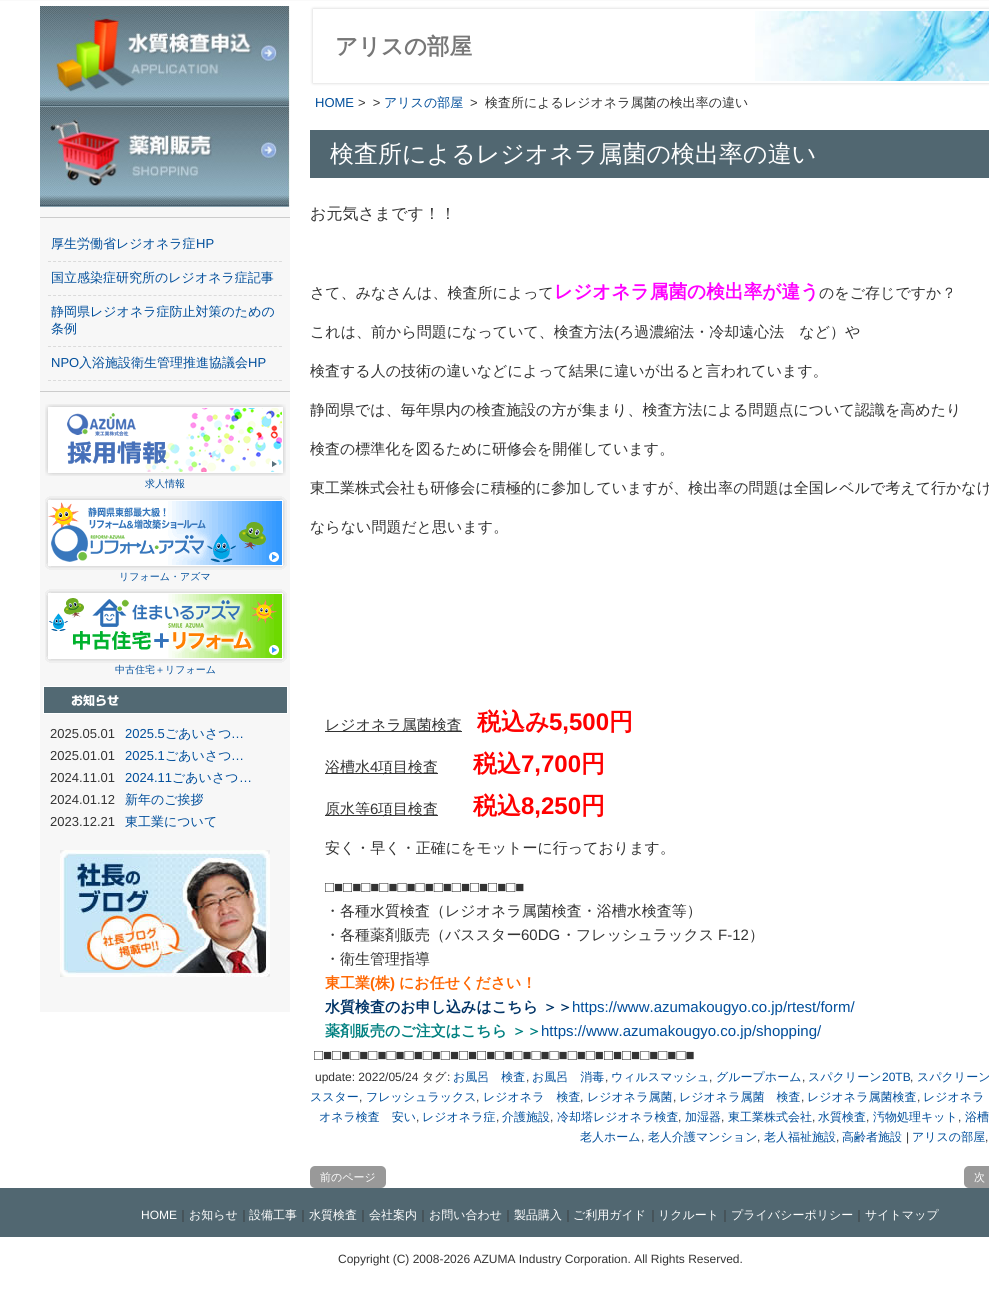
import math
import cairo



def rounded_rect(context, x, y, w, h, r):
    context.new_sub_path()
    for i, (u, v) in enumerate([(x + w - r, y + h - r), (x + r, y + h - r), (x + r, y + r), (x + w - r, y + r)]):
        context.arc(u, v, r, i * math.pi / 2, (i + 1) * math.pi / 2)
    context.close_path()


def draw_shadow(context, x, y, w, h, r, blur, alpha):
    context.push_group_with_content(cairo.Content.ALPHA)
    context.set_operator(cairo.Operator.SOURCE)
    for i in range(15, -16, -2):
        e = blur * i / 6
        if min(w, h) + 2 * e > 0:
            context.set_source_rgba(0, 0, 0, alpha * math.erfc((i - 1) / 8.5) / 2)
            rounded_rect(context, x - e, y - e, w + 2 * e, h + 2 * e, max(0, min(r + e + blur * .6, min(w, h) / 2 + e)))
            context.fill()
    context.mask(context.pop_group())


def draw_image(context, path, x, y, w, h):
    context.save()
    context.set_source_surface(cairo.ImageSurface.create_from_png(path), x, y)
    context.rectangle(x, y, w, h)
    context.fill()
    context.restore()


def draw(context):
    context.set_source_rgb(1, 1, 1)
    context.paint()
    context.set_source_rgb(250 / 255, 250 / 255, 250 / 255)
    context.rectangle(0, 0, 989, 1)
    context.fill()
    context.set_source_rgb(247 / 255, 247 / 255, 247 / 255)
    context.rectangle(40, 207, 250, 805)
    context.fill()
    draw_image(context, "images/1.png", 40, 6, 250, 101)
    draw_image(context, "images/2.png", 40, 107, 250, 100)
    context.set_source_rgb(204 / 255, 204 / 255, 204 / 255)
    context.rectangle(40, 217, 250, 1)
    context.fill()
    context.rectangle(40, 391, 250, 1)
    context.fill()
    context.new_path()
    context.move_to(48, 261.5)
    context.line_to(282, 261.5)
    context.set_source_rgb(219 / 255, 219 / 255, 219 / 255)
    context.set_line_width(1)
    context.set_dash([3, 2.02])
    context.stroke()
    context.new_path()
    context.move_to(48, 295.5)
    context.line_to(282, 295.5)
    context.stroke()
    context.new_path()
    context.move_to(48, 346.5)
    context.line_to(282, 346.5)
    context.stroke()
    context.new_path()
    context.move_to(48, 380.5)
    context.line_to(282, 380.5)
    context.stroke()
    draw_image(context, "images/3.png", 45, 404, 241, 72)
    draw_image(context, "images/4.png", 45, 496, 242, 74)
    draw_image(context, "images/5.png", 45, 589, 242, 74)
    draw_image(context, "images/6.png", 43, 686, 245, 28)
    draw_image(context, "images/7.png", 60, 850, 210, 127)
    context.save()
    context.set_fill_rule(cairo.FillRule.EVEN_ODD)
    context.new_path()
    context.move_to(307, 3)
    context.line_to(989, 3)
    context.line_to(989, 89)
    context.line_to(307, 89)
    context.close_path()
    context.move_to(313, 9)
    context.line_to(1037, 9)
    context.line_to(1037, 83)
    context.line_to(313, 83)
    context.close_path()
    context.clip()
    context.set_source_rgb(204 / 255, 204 / 255, 204 / 255)
    draw_shadow(context, 313, 9, 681, 74, 0, 1.5, 1)
    context.restore()
    draw_image(context, "images/8.png", 755, 11, 234, 70)
    context.set_source_rgb(81 / 255, 103 / 255, 113 / 255)
    context.rectangle(310, 130, 679, 48)
    context.fill()
    context.set_source_rgb(51 / 255, 51 / 255, 51 / 255)
    context.rectangle(325, 731, 137, 1)
    context.fill()
    context.rectangle(325, 773, 113, 1)
    context.fill()
    context.rectangle(325, 815, 113, 1)
    context.fill()
    context.set_source_rgb(153 / 255, 153 / 255, 153 / 255)
    rounded_rect(context, 310, 1166, 76, 22, 5)
    context.fill()
    rounded_rect(context, 964, 1166, 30, 22, 5)
    context.fill()
    context.set_source_rgb(81 / 255, 103 / 255, 113 / 255)
    context.rectangle(0, 1188, 989, 49)
    context.fill()
    context.select_font_face("WenQuanYi Zen Hei Medium")
    context.set_font_size(13)
    context.set_source_rgb(0, 78 / 255, 155 / 255)
    context.move_to(51, 248)
    context.show_text("厚生労働省レジオネラ症")
    context.select_font_face("Liberation Sans")
    context.move_to(196, 248)
    context.show_text("HP")
    context.select_font_face("WenQuanYi Zen Hei Medium")
    context.move_to(51, 282)
    context.show_text("国立感染症研究所のレジオネラ症記事")
    context.move_to(51, 316)
    context.show_text("静岡県レジオネラ症防止対策のための")
    context.move_to(51, 333)
    context.show_text("条例")
    context.select_font_face("Liberation Sans")
    context.move_to(51, 367)
    context.show_text("NPO")
    context.select_font_face("WenQuanYi Zen Hei Medium")
    context.move_to(79, 367)
    context.show_text("入浴施設衛生管理推進協議会")
    context.select_font_face("Liberation Sans")
    context.move_to(248, 367)
    context.show_text("HP")
    context.select_font_face("WenQuanYi Zen Hei Medium")
    context.set_font_size(10)
    context.move_to(145, 487)
    context.show_text("求人情報")
    context.move_to(119, 580)
    context.show_text("リフォーム・アズマ")
    context.move_to(115, 673)
    context.show_text("中古住宅＋リフォーム")
    context.select_font_face("Liberation Sans")
    context.set_font_size(13)
    context.set_source_rgb(51 / 255, 51 / 255, 51 / 255)
    context.move_to(50, 738)
    context.show_text("2025.05.01")
    context.set_source_rgb(0, 78 / 255, 155 / 255)
    context.move_to(125, 738)
    context.show_text("2025.5")
    context.select_font_face("WenQuanYi Zen Hei Medium")
    context.move_to(165, 738)
    context.show_text("ごあいさつ")
    context.select_font_face("Liberation Sans")
    context.move_to(231, 738)
    context.show_text("…")
    context.set_source_rgb(51 / 255, 51 / 255, 51 / 255)
    context.move_to(50, 760)
    context.show_text("2025.01.01")
    context.set_source_rgb(0, 78 / 255, 155 / 255)
    context.move_to(125, 760)
    context.show_text("2025.1")
    context.select_font_face("WenQuanYi Zen Hei Medium")
    context.move_to(165, 760)
    context.show_text("ごあいさつ")
    context.select_font_face("Liberation Sans")
    context.move_to(231, 760)
    context.show_text("…")
    context.set_source_rgb(51 / 255, 51 / 255, 51 / 255)
    context.move_to(50, 782)
    context.show_text("2024.11.01")
    context.set_source_rgb(0, 78 / 255, 155 / 255)
    context.move_to(125, 782)
    context.show_text("2024.11")
    context.select_font_face("WenQuanYi Zen Hei Medium")
    context.move_to(172, 782)
    context.show_text("ごあいさつ")
    context.select_font_face("Liberation Sans")
    context.move_to(239, 782)
    context.show_text("…")
    context.set_source_rgb(51 / 255, 51 / 255, 51 / 255)
    context.move_to(50, 804)
    context.show_text("2024.01.12")
    context.select_font_face("WenQuanYi Zen Hei Medium")
    context.set_source_rgb(0, 78 / 255, 155 / 255)
    context.move_to(125, 804)
    context.show_text("新年のご挨拶")
    context.select_font_face("Liberation Sans")
    context.set_source_rgb(51 / 255, 51 / 255, 51 / 255)
    context.move_to(50, 826)
    context.show_text("2023.12.21")
    context.select_font_face("WenQuanYi Zen Hei Medium")
    context.set_source_rgb(0, 78 / 255, 155 / 255)
    context.move_to(125, 826)
    context.show_text("東工業について")
    context.select_font_face("WenQuanYi Zen Hei", cairo.FontSlant.NORMAL, cairo.FontWeight.BOLD)
    context.set_font_size(22.5)
    context.set_source_rgb(119 / 255, 119 / 255, 119 / 255)
    context.move_to(335, 54)
    context.show_text("アリスの部屋")
    context.select_font_face("Liberation Sans")
    context.set_font_size(13)
    context.set_source_rgb(0, 78 / 255, 155 / 255)
    context.move_to(315, 107)
    context.show_text("HOME")
    context.set_source_rgb(51 / 255, 51 / 255, 51 / 255)
    context.move_to(358, 107)
    context.show_text(">  >")
    context.select_font_face("WenQuanYi Zen Hei Medium")
    context.set_source_rgb(0, 78 / 255, 155 / 255)
    context.move_to(384, 107)
    context.show_text("アリスの部屋")
    context.select_font_face("Liberation Sans")
    context.set_source_rgb(51 / 255, 51 / 255, 51 / 255)
    context.move_to(470, 107)
    context.show_text(">")
    context.select_font_face("WenQuanYi Zen Hei Medium")
    context.move_to(485, 107)
    context.show_text("検査所によるレジオネラ属菌の検出率の違い")
    context.set_font_size(24)
    context.set_source_rgb(1, 1, 1)
    context.move_to(330, 162)
    context.show_text("検査所によるレジオネラ属菌の検出率の違い")
    context.set_font_size(16)
    context.set_source_rgb(51 / 255, 51 / 255, 51 / 255)
    context.move_to(310, 219)
    context.show_text("お元気さまです！！")
    context.set_font_size(15)
    context.move_to(310, 298)
    context.show_text("さて、みなさんは、検査所によって")
    context.select_font_face("WenQuanYi Zen Hei", cairo.FontSlant.NORMAL, cairo.FontWeight.BOLD)
    context.set_font_size(18.7)
    context.set_source_rgb(1, 0, 1)
    context.move_to(554, 298)
    context.show_text("レジオネラ属菌の検出率が違う")
    context.select_font_face("WenQuanYi Zen Hei Medium")
    context.set_font_size(15)
    context.set_source_rgb(51 / 255, 51 / 255, 51 / 255)
    context.move_to(819, 298)
    context.show_text("のをご存じですか？")
    context.move_to(310, 337)
    context.show_text("これは、前から問題になっていて、検査方法")
    context.select_font_face("Liberation Sans")
    context.move_to(614, 337)
    context.show_text("(")
    context.select_font_face("WenQuanYi Zen Hei Medium")
    context.move_to(619, 337)
    context.show_text("ろ過濃縮法・冷却遠心法　など）や")
    context.move_to(310, 376)
    context.show_text("検査する人の技術の違いなどによって結果に違いが出ると言われています。")
    context.move_to(310, 415)
    context.show_text("静岡県では、毎年県内の検査施設の方が集まり、検査方法による問題点について認識を高めたり")
    context.move_to(310, 454)
    context.show_text("検査の標準化を図るために研修会を開催しています。")
    context.move_to(310, 493)
    context.show_text("東工業株式会社も研修会に積極的に参加していますが、検出率の問題は全国レベルで考えて行かなけ")
    context.move_to(310, 532)
    context.show_text("ならない問題だと思います。")
    context.move_to(325, 730)
    context.show_text("レジオネラ属菌検査")
    context.select_font_face("WenQuanYi Zen Hei", cairo.FontSlant.NORMAL, cairo.FontWeight.BOLD)
    context.set_font_size(24)
    context.set_source_rgb(1, 0, 0)
    context.move_to(477, 730)
    context.show_text("税込み")
    context.select_font_face("Liberation Sans", cairo.FontSlant.NORMAL, cairo.FontWeight.BOLD)
    context.move_to(549, 730)
    context.show_text("5,500")
    context.select_font_face("WenQuanYi Zen Hei", cairo.FontSlant.NORMAL, cairo.FontWeight.BOLD)
    context.move_to(609, 730)
    context.show_text("円")
    context.select_font_face("WenQuanYi Zen Hei Medium")
    context.set_font_size(15)
    context.set_source_rgb(51 / 255, 51 / 255, 51 / 255)
    context.move_to(325, 772)
    context.show_text("浴槽水")
    context.select_font_face("Liberation Sans")
    context.move_to(370, 772)
    context.show_text("4")
    context.select_font_face("WenQuanYi Zen Hei Medium")
    context.move_to(378, 772)
    context.show_text("項目検査")
    context.select_font_face("WenQuanYi Zen Hei", cairo.FontSlant.NORMAL, cairo.FontWeight.BOLD)
    context.set_font_size(24)
    context.set_source_rgb(1, 0, 0)
    context.move_to(473, 772)
    context.show_text("税込")
    context.select_font_face("Liberation Sans", cairo.FontSlant.NORMAL, cairo.FontWeight.BOLD)
    context.move_to(521, 772)
    context.show_text("7,700")
    context.select_font_face("WenQuanYi Zen Hei", cairo.FontSlant.NORMAL, cairo.FontWeight.BOLD)
    context.move_to(581, 772)
    context.show_text("円")
    context.select_font_face("WenQuanYi Zen Hei Medium")
    context.set_font_size(15)
    context.set_source_rgb(51 / 255, 51 / 255, 51 / 255)
    context.move_to(325, 814)
    context.show_text("原水等")
    context.select_font_face("Liberation Sans")
    context.move_to(370, 814)
    context.show_text("6")
    context.select_font_face("WenQuanYi Zen Hei Medium")
    context.move_to(378, 814)
    context.show_text("項目検査")
    context.select_font_face("WenQuanYi Zen Hei", cairo.FontSlant.NORMAL, cairo.FontWeight.BOLD)
    context.set_font_size(24)
    context.set_source_rgb(1, 0, 0)
    context.move_to(473, 814)
    context.show_text("税込")
    context.select_font_face("Liberation Sans", cairo.FontSlant.NORMAL, cairo.FontWeight.BOLD)
    context.move_to(521, 814)
    context.show_text("8,250")
    context.select_font_face("WenQuanYi Zen Hei", cairo.FontSlant.NORMAL, cairo.FontWeight.BOLD)
    context.move_to(581, 814)
    context.show_text("円")
    context.select_font_face("WenQuanYi Zen Hei Medium")
    context.set_font_size(15)
    context.set_source_rgb(51 / 255, 51 / 255, 51 / 255)
    context.move_to(325, 853)
    context.show_text("安く・早く・正確にをモットーに行っております。")
    context.select_font_face("Liberation Sans")
    context.move_to(325, 892)
    context.show_text("□■□■□■□■□■□■□■□■□■□■□■")
    context.select_font_face("WenQuanYi Zen Hei Medium")
    context.move_to(325, 916)
    context.show_text("・各種水質検査（レジオネラ属菌検査・浴槽水検査等）")
    context.move_to(325, 940)
    context.show_text("・各種薬剤販売（バススター")
    context.select_font_face("Liberation Sans")
    context.move_to(521, 940)
    context.show_text("60DG")
    context.select_font_face("WenQuanYi Zen Hei Medium")
    context.move_to(561, 940)
    context.show_text("・フレッシュラックス")
    context.select_font_face("Liberation Sans")
    context.move_to(718, 940)
    context.show_text("F-12")
    context.select_font_face("WenQuanYi Zen Hei Medium")
    context.move_to(749, 940)
    context.show_text("）")
    context.move_to(325, 964)
    context.show_text("・衛生管理指導")
    context.select_font_face("WenQuanYi Zen Hei", cairo.FontSlant.NORMAL, cairo.FontWeight.BOLD)
    context.set_source_rgb(1, 102 / 255, 0)
    context.move_to(325, 988)
    context.show_text("東工業")
    context.select_font_face("Liberation Sans", cairo.FontSlant.NORMAL, cairo.FontWeight.BOLD)
    context.move_to(370, 988)
    context.show_text("(")
    context.select_font_face("WenQuanYi Zen Hei", cairo.FontSlant.NORMAL, cairo.FontWeight.BOLD)
    context.move_to(375, 988)
    context.show_text("株")
    context.select_font_face("Liberation Sans", cairo.FontSlant.NORMAL, cairo.FontWeight.BOLD)
    context.move_to(390, 988)
    context.show_text(")")
    context.select_font_face("WenQuanYi Zen Hei", cairo.FontSlant.NORMAL, cairo.FontWeight.BOLD)
    context.move_to(399, 988)
    context.show_text("にお任せください！")
    context.set_source_rgb(0, 51 / 255, 102 / 255)
    context.move_to(325, 1012)
    context.show_text("水質検査のお申し込みは")
    context.move_to(492, 1012)
    context.show_text("こちら ＞＞")
    context.select_font_face("Liberation Sans")
    context.set_source_rgb(0, 78 / 255, 155 / 255)
    context.move_to(572, 1012)
    context.show_text("https://www.azumakougyo.co.jp/rtest/form/")
    context.select_font_face("WenQuanYi Zen Hei", cairo.FontSlant.NORMAL, cairo.FontWeight.BOLD)
    context.set_source_rgb(0, 128 / 255, 128 / 255)
    context.move_to(325, 1036)
    context.show_text("薬剤販売のご注文は")
    context.move_to(461, 1036)
    context.show_text("こちら ＞＞")
    context.select_font_face("Liberation Sans")
    context.set_source_rgb(0, 78 / 255, 155 / 255)
    context.move_to(541, 1036)
    context.show_text("https://www.azumakougyo.co.jp/shopping/")
    context.set_source_rgb(51 / 255, 51 / 255, 51 / 255)
    context.move_to(314, 1060)
    context.show_text("□■□■□■□■□■□■□■□■□■□■□■□■□■□■□■□■□■□■□■□■□■")
    context.set_font_size(12)
    context.move_to(315, 1081)
    context.show_text("update: 2022/05/24")
    context.select_font_face("WenQuanYi Zen Hei Medium")
    context.move_to(422, 1081)
    context.show_text("タグ")
    context.select_font_face("Liberation Sans")
    context.move_to(447, 1081)
    context.show_text(":")
    context.select_font_face("WenQuanYi Zen Hei Medium")
    context.set_source_rgb(0, 78 / 255, 155 / 255)
    context.move_to(453, 1081)
    context.show_text("お風呂　検査")
    context.select_font_face("Liberation Sans")
    context.set_source_rgb(51 / 255, 51 / 255, 51 / 255)
    context.move_to(526, 1081)
    context.show_text(",")
    context.select_font_face("WenQuanYi Zen Hei Medium")
    context.set_source_rgb(0, 78 / 255, 155 / 255)
    context.move_to(532, 1081)
    context.show_text("お風呂　消毒")
    context.select_font_face("Liberation Sans")
    context.set_source_rgb(51 / 255, 51 / 255, 51 / 255)
    context.move_to(605, 1081)
    context.show_text(",")
    context.select_font_face("WenQuanYi Zen Hei Medium")
    context.set_source_rgb(0, 78 / 255, 155 / 255)
    context.move_to(611, 1081)
    context.show_text("ウィルスマッシュ")
    context.select_font_face("Liberation Sans")
    context.set_source_rgb(51 / 255, 51 / 255, 51 / 255)
    context.move_to(709, 1081)
    context.show_text(",")
    context.select_font_face("WenQuanYi Zen Hei Medium")
    context.set_source_rgb(0, 78 / 255, 155 / 255)
    context.move_to(716, 1081)
    context.show_text("グループホーム")
    context.select_font_face("Liberation Sans")
    context.set_source_rgb(51 / 255, 51 / 255, 51 / 255)
    context.move_to(802, 1081)
    context.show_text(",")
    context.select_font_face("WenQuanYi Zen Hei Medium")
    context.set_source_rgb(0, 78 / 255, 155 / 255)
    context.move_to(808, 1081)
    context.show_text("スパクリーン")
    context.select_font_face("Liberation Sans")
    context.move_to(882, 1081)
    context.show_text("20TB")
    context.set_source_rgb(51 / 255, 51 / 255, 51 / 255)
    context.move_to(910, 1081)
    context.show_text(",")
    context.select_font_face("WenQuanYi Zen Hei Medium")
    context.set_source_rgb(0, 78 / 255, 155 / 255)
    context.move_to(917, 1081)
    context.show_text("スパクリーン")
    context.move_to(310, 1101)
    context.show_text("ススター")
    context.select_font_face("Liberation Sans")
    context.set_source_rgb(51 / 255, 51 / 255, 51 / 255)
    context.move_to(359, 1101)
    context.show_text(",")
    context.select_font_face("WenQuanYi Zen Hei Medium")
    context.set_source_rgb(0, 78 / 255, 155 / 255)
    context.move_to(366, 1101)
    context.show_text("フレッシュラックス")
    context.select_font_face("Liberation Sans")
    context.set_source_rgb(51 / 255, 51 / 255, 51 / 255)
    context.move_to(476, 1101)
    context.show_text(",")
    context.select_font_face("WenQuanYi Zen Hei Medium")
    context.set_source_rgb(0, 78 / 255, 155 / 255)
    context.move_to(483, 1101)
    context.show_text("レジオネラ　検査")
    context.select_font_face("Liberation Sans")
    context.set_source_rgb(51 / 255, 51 / 255, 51 / 255)
    context.move_to(580, 1101)
    context.show_text(",")
    context.select_font_face("WenQuanYi Zen Hei Medium")
    context.set_source_rgb(0, 78 / 255, 155 / 255)
    context.move_to(587, 1101)
    context.show_text("レジオネラ属菌")
    context.select_font_face("Liberation Sans")
    context.set_source_rgb(51 / 255, 51 / 255, 51 / 255)
    context.move_to(673, 1101)
    context.show_text(",")
    context.select_font_face("WenQuanYi Zen Hei Medium")
    context.set_source_rgb(0, 78 / 255, 155 / 255)
    context.move_to(679, 1101)
    context.show_text("レジオネラ属菌　検査")
    context.select_font_face("Liberation Sans")
    context.set_source_rgb(51 / 255, 51 / 255, 51 / 255)
    context.move_to(801, 1101)
    context.show_text(",")
    context.select_font_face("WenQuanYi Zen Hei Medium")
    context.set_source_rgb(0, 78 / 255, 155 / 255)
    context.move_to(807, 1101)
    context.show_text("レジオネラ属菌検査")
    context.select_font_face("Liberation Sans")
    context.set_source_rgb(51 / 255, 51 / 255, 51 / 255)
    context.move_to(917, 1101)
    context.show_text(",")
    context.select_font_face("WenQuanYi Zen Hei Medium")
    context.set_source_rgb(0, 78 / 255, 155 / 255)
    context.move_to(923, 1101)
    context.show_text("レジオネラ")
    context.move_to(319, 1121)
    context.show_text("オネラ検査　安い")
    context.select_font_face("Liberation Sans")
    context.set_source_rgb(51 / 255, 51 / 255, 51 / 255)
    context.move_to(416, 1121)
    context.show_text(",")
    context.select_font_face("WenQuanYi Zen Hei Medium")
    context.set_source_rgb(0, 78 / 255, 155 / 255)
    context.move_to(422, 1121)
    context.show_text("レジオネラ症")
    context.select_font_face("Liberation Sans")
    context.set_source_rgb(51 / 255, 51 / 255, 51 / 255)
    context.move_to(496, 1121)
    context.show_text(",")
    context.select_font_face("WenQuanYi Zen Hei Medium")
    context.set_source_rgb(0, 78 / 255, 155 / 255)
    context.move_to(502, 1121)
    context.show_text("介護施設")
    context.select_font_face("Liberation Sans")
    context.set_source_rgb(51 / 255, 51 / 255, 51 / 255)
    context.move_to(550, 1121)
    context.show_text(",")
    context.select_font_face("WenQuanYi Zen Hei Medium")
    context.set_source_rgb(0, 78 / 255, 155 / 255)
    context.move_to(557, 1121)
    context.show_text("冷却塔レジオネラ検査")
    context.select_font_face("Liberation Sans")
    context.set_source_rgb(51 / 255, 51 / 255, 51 / 255)
    context.move_to(678, 1121)
    context.show_text(",")
    context.select_font_face("WenQuanYi Zen Hei Medium")
    context.set_source_rgb(0, 78 / 255, 155 / 255)
    context.move_to(685, 1121)
    context.show_text("加湿器")
    context.select_font_face("Liberation Sans")
    context.set_source_rgb(51 / 255, 51 / 255, 51 / 255)
    context.move_to(721, 1121)
    context.show_text(",")
    context.select_font_face("WenQuanYi Zen Hei Medium")
    context.set_source_rgb(0, 78 / 255, 155 / 255)
    context.move_to(728, 1121)
    context.show_text("東工業株式会社")
    context.select_font_face("Liberation Sans")
    context.set_source_rgb(51 / 255, 51 / 255, 51 / 255)
    context.move_to(812, 1121)
    context.show_text(",")
    context.select_font_face("WenQuanYi Zen Hei Medium")
    context.set_source_rgb(0, 78 / 255, 155 / 255)
    context.move_to(818, 1121)
    context.show_text("水質検査")
    context.select_font_face("Liberation Sans")
    context.set_source_rgb(51 / 255, 51 / 255, 51 / 255)
    context.move_to(866, 1121)
    context.show_text(",")
    context.select_font_face("WenQuanYi Zen Hei Medium")
    context.set_source_rgb(0, 78 / 255, 155 / 255)
    context.move_to(873, 1121)
    context.show_text("汚物処理キット")
    context.select_font_face("Liberation Sans")
    context.set_source_rgb(51 / 255, 51 / 255, 51 / 255)
    context.move_to(958, 1121)
    context.show_text(",")
    context.select_font_face("WenQuanYi Zen Hei Medium")
    context.set_source_rgb(0, 78 / 255, 155 / 255)
    context.move_to(965, 1121)
    context.show_text("浴槽")
    context.move_to(580, 1141)
    context.show_text("老人ホーム")
    context.select_font_face("Liberation Sans")
    context.set_source_rgb(51 / 255, 51 / 255, 51 / 255)
    context.move_to(641, 1141)
    context.show_text(",")
    context.select_font_face("WenQuanYi Zen Hei Medium")
    context.set_source_rgb(0, 78 / 255, 155 / 255)
    context.move_to(648, 1141)
    context.show_text("老人介護マンション")
    context.select_font_face("Liberation Sans")
    context.set_source_rgb(51 / 255, 51 / 255, 51 / 255)
    context.move_to(757, 1141)
    context.show_text(",")
    context.select_font_face("WenQuanYi Zen Hei Medium")
    context.set_source_rgb(0, 78 / 255, 155 / 255)
    context.move_to(764, 1141)
    context.show_text("老人福祉施設")
    context.select_font_face("Liberation Sans")
    context.set_source_rgb(51 / 255, 51 / 255, 51 / 255)
    context.move_to(836, 1141)
    context.show_text(",")
    context.select_font_face("WenQuanYi Zen Hei Medium")
    context.set_source_rgb(0, 78 / 255, 155 / 255)
    context.move_to(842, 1141)
    context.show_text("高齢者施設")
    context.select_font_face("Liberation Sans")
    context.set_source_rgb(51 / 255, 51 / 255, 51 / 255)
    context.move_to(906, 1141)
    context.show_text("|")
    context.select_font_face("WenQuanYi Zen Hei Medium")
    context.set_source_rgb(0, 78 / 255, 155 / 255)
    context.move_to(912, 1141)
    context.show_text("アリスの部屋")
    context.select_font_face("Liberation Sans")
    context.set_source_rgb(51 / 255, 51 / 255, 51 / 255)
    context.move_to(985, 1141)
    context.show_text(",")
    context.select_font_face("WenQuanYi Zen Hei Medium")
    context.set_font_size(11)
    context.set_source_rgb(1, 1, 1)
    context.move_to(320, 1181)
    context.show_text("前のページ")
    context.move_to(974, 1181)
    context.show_text("次")
    context.select_font_face("Liberation Sans")
    context.set_font_size(12)
    context.move_to(141, 1219)
    context.show_text("HOME")
    context.select_font_face("WenQuanYi Zen Hei Medium")
    context.set_source_rgb(51 / 255, 51 / 255, 51 / 255)
    context.move_to(177, 1219)
    context.show_text("｜")
    context.set_source_rgb(1, 1, 1)
    context.move_to(189, 1219)
    context.show_text("お知らせ")
    context.set_source_rgb(51 / 255, 51 / 255, 51 / 255)
    context.move_to(238, 1219)
    context.show_text("｜")
    context.set_source_rgb(1, 1, 1)
    context.move_to(249, 1219)
    context.show_text("設備工事")
    context.set_source_rgb(51 / 255, 51 / 255, 51 / 255)
    context.move_to(297, 1219)
    context.show_text("｜")
    context.set_source_rgb(1, 1, 1)
    context.move_to(309, 1219)
    context.show_text("水質検査")
    context.set_source_rgb(51 / 255, 51 / 255, 51 / 255)
    context.move_to(357, 1219)
    context.show_text("｜")
    context.set_source_rgb(1, 1, 1)
    context.move_to(369, 1219)
    context.show_text("会社案内")
    context.set_source_rgb(51 / 255, 51 / 255, 51 / 255)
    context.move_to(417, 1219)
    context.show_text("｜")
    context.set_source_rgb(1, 1, 1)
    context.move_to(429, 1219)
    context.show_text("お問い合わせ")
    context.set_source_rgb(51 / 255, 51 / 255, 51 / 255)
    context.move_to(502, 1219)
    context.show_text("｜")
    context.set_source_rgb(1, 1, 1)
    context.move_to(514, 1219)
    context.show_text("製品購入")
    context.set_source_rgb(51 / 255, 51 / 255, 51 / 255)
    context.move_to(562, 1219)
    context.show_text("｜")
    context.set_source_rgb(1, 1, 1)
    context.move_to(573, 1219)
    context.show_text("ご利用ガイド")
    context.set_source_rgb(51 / 255, 51 / 255, 51 / 255)
    context.move_to(647, 1219)
    context.show_text("｜")
    context.set_source_rgb(1, 1, 1)
    context.move_to(658, 1219)
    context.show_text("リクルート")
    context.set_source_rgb(51 / 255, 51 / 255, 51 / 255)
    context.move_to(719, 1219)
    context.show_text("｜")
    context.set_source_rgb(1, 1, 1)
    context.move_to(731, 1219)
    context.show_text("プライバシーポリシー")
    context.set_source_rgb(51 / 255, 51 / 255, 51 / 255)
    context.move_to(853, 1219)
    context.show_text("｜")
    context.set_source_rgb(1, 1, 1)
    context.move_to(865, 1219)
    context.show_text("サイトマップ")
    context.select_font_face("Liberation Sans")
    context.set_source_rgb(51 / 255, 51 / 255, 51 / 255)
    context.move_to(338, 1263)
    context.show_text("Copyright (C) 2008-2026 AZUMA Industry Corporation. All Rights Reserved.")


surface = cairo.ImageSurface(cairo.Format.RGB24, 989, 1289)
context = cairo.Context(surface)
options = cairo.FontOptions()
options.set_hint_metrics(cairo.HintMetrics.OFF)
options.set_hint_style(cairo.HintStyle.NONE)
context.set_font_options(options)
context.set_miter_limit(4)
draw(context)
surface.write_to_png("out.png")
